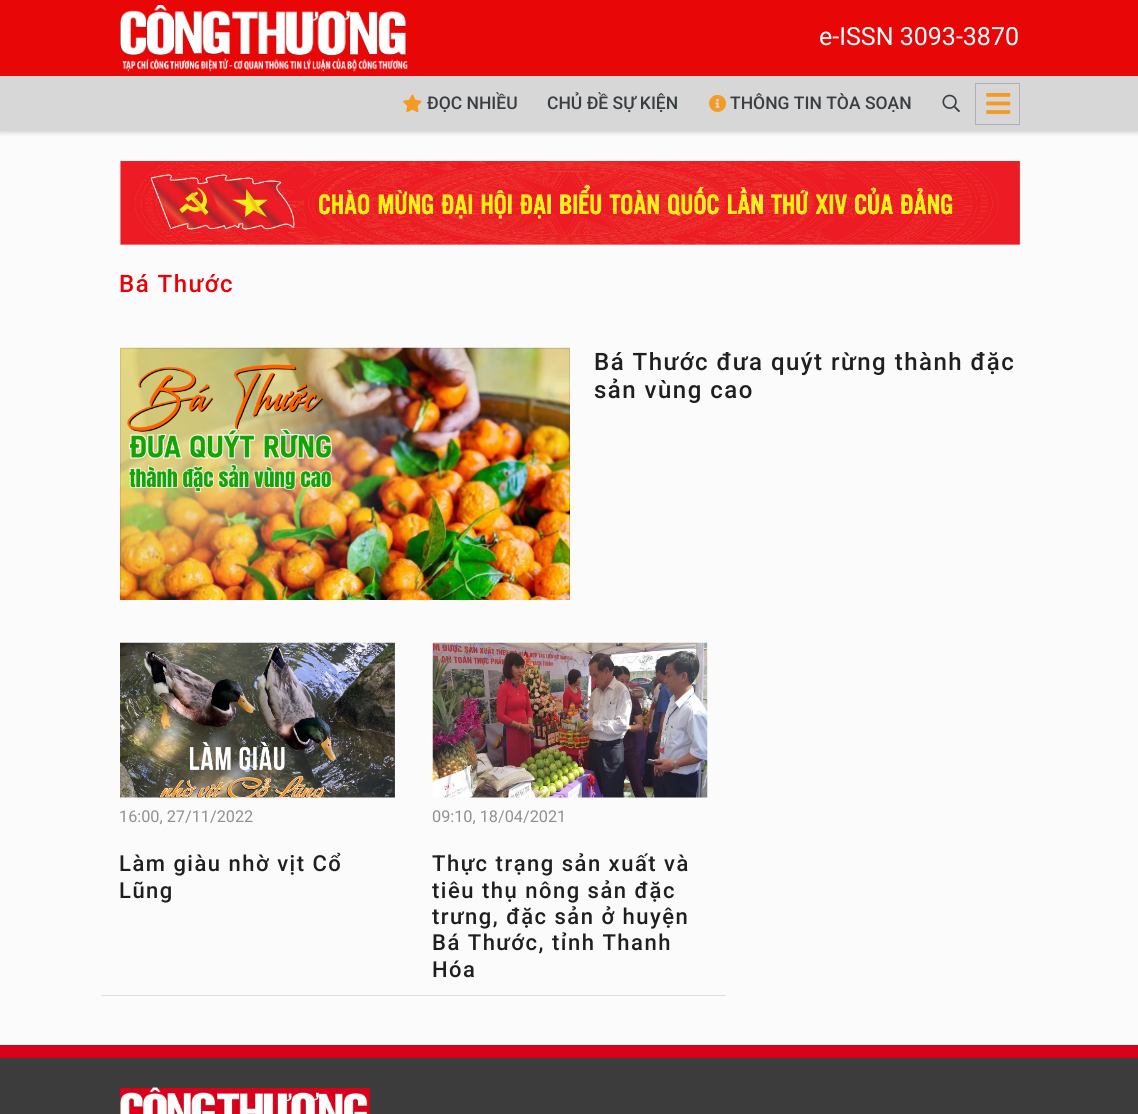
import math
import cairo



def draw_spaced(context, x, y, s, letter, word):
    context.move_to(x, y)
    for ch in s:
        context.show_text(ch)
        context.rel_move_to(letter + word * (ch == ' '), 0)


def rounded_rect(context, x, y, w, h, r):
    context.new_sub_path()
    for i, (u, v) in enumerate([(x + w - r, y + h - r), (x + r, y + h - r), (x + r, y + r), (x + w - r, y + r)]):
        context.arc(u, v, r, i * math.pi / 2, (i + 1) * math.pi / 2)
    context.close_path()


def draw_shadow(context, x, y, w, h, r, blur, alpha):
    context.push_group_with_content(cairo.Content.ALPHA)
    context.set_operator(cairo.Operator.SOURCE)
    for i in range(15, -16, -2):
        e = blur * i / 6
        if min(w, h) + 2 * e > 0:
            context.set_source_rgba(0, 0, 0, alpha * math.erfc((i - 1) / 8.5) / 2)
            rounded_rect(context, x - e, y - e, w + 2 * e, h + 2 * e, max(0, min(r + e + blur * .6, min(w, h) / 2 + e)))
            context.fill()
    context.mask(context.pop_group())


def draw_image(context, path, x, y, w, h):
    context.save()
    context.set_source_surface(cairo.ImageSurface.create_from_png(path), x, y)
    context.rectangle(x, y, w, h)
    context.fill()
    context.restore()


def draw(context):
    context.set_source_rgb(251 / 255, 251 / 255, 251 / 255)
    context.paint()
    context.set_source_rgb(233 / 255, 6 / 255, 6 / 255)
    context.rectangle(0, 0, 1138, 76)
    context.fill()
    draw_image(context, "images/1.png", 120, 5, 288, 67)
    context.set_source_rgb(0, 0, 0)
    draw_shadow(context, 0, 78, 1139, 55, 0, 2, 0.15)
    context.set_source_rgb(215 / 255, 215 / 255, 215 / 255)
    context.rectangle(0, 76, 1138, 55)
    context.fill()
    draw_image(context, "images/2.png", 403, 94, 19, 19)
    draw_image(context, "images/3.png", 709, 95, 17, 17)
    draw_image(context, "images/4.png", 942, 94, 18, 19)
    context.rectangle(975.5, 83.5, 44, 41)
    context.set_source_rgb(176 / 255, 176 / 255, 176 / 255)
    context.set_line_width(1)
    context.stroke()
    draw_image(context, "images/5.png", 986, 92, 25, 22)
    draw_image(context, "images/6.png", 120, 161, 900, 84)
    draw_image(context, "images/7.png", 120, 347, 450, 253)
    context.save()
    context.rectangle(120, 348, 450, 252)
    context.clip()
    context.rectangle(120.5, 348.5, 449, 261)
    context.set_source_rgba(0, 0, 0, 0.1)
    context.stroke()
    context.restore()
    context.set_source_rgb(223 / 255, 223 / 255, 223 / 255)
    context.rectangle(101, 995, 625, 1)
    context.fill()
    draw_image(context, "images/8.png", 120, 642, 275, 156)
    draw_image(context, "images/9.png", 432, 642, 276, 156)
    context.set_source_rgb(60 / 255, 60 / 255, 60 / 255)
    context.rectangle(0, 1058, 1138, 56)
    context.fill()
    context.set_source_rgb(217 / 255, 0, 27 / 255)
    context.rectangle(0, 1045, 1138, 13)
    context.fill()
    context.rectangle(120, 1088, 250, 26)
    context.fill()
    draw_image(context, "images/10.png", 120, 1087, 248, 27)
    context.select_font_face("Roboto")
    context.set_font_size(25)
    context.set_source_rgb(1, 1, 1)
    context.move_to(819, 45)
    context.show_text("e-ISSN 3093-3870")
    context.select_font_face("Roboto Medium")
    context.set_font_size(17.5)
    context.set_source_rgb(56 / 255, 62 / 255, 66 / 255)
    context.move_to(427, 109)
    context.show_text("ĐỌC NHIỀU")
    context.move_to(547, 109)
    context.show_text("CHỦ ĐỀ SỰ KIỆN")
    context.move_to(730, 109)
    context.show_text("THÔNG TIN TÒA SOẠN")
    context.set_font_size(24)
    context.set_source_rgb(233 / 255, 2 / 255, 7 / 255)
    draw_spaced(context, 119, 292, "Bá Thước", 1.5, 0)
    context.set_source_rgb(31 / 255, 31 / 255, 31 / 255)
    draw_spaced(context, 594, 370, "Bá Thước đưa quýt rừng thành đặc", 1.5, 0)
    draw_spaced(context, 594, 398, "sản vùng cao", 1.5, 0)
    context.select_font_face("Roboto")
    context.set_font_size(16.25)
    context.set_source_rgb(144 / 255, 144 / 255, 144 / 255)
    context.move_to(119, 822)
    context.show_text("16:00, 27/11/2022")
    context.select_font_face("Roboto Medium")
    context.set_font_size(22)
    context.set_source_rgb(31 / 255, 31 / 255, 31 / 255)
    draw_spaced(context, 119, 871, "Làm giàu nhờ vịt Cổ", 1.5, 0)
    draw_spaced(context, 119, 898, "Lũng", 1.5, 0)
    context.select_font_face("Roboto")
    context.set_font_size(16.25)
    context.set_source_rgb(144 / 255, 144 / 255, 144 / 255)
    context.move_to(432, 822)
    context.show_text("09:10, 18/04/2021")
    context.select_font_face("Roboto Medium")
    context.set_font_size(22)
    context.set_source_rgb(31 / 255, 31 / 255, 31 / 255)
    draw_spaced(context, 432, 871, "Thực trạng sản xuất và", 1.5, 0)
    draw_spaced(context, 432, 898, "tiêu thụ nông sản đặc", 1.5, 0)
    draw_spaced(context, 432, 924, "trưng, đặc sản ở huyện", 1.5, 0)
    draw_spaced(context, 432, 950, "Bá Thước, tỉnh Thanh", 1.5, 0)
    draw_spaced(context, 432, 977, "Hóa", 1.5, 0)


surface = cairo.ImageSurface(cairo.Format.RGB24, 1138, 1114)
context = cairo.Context(surface)
options = cairo.FontOptions()
options.set_hint_metrics(cairo.HintMetrics.OFF)
options.set_hint_style(cairo.HintStyle.NONE)
context.set_font_options(options)
context.set_miter_limit(4)
draw(context)
surface.write_to_png("out.png")
